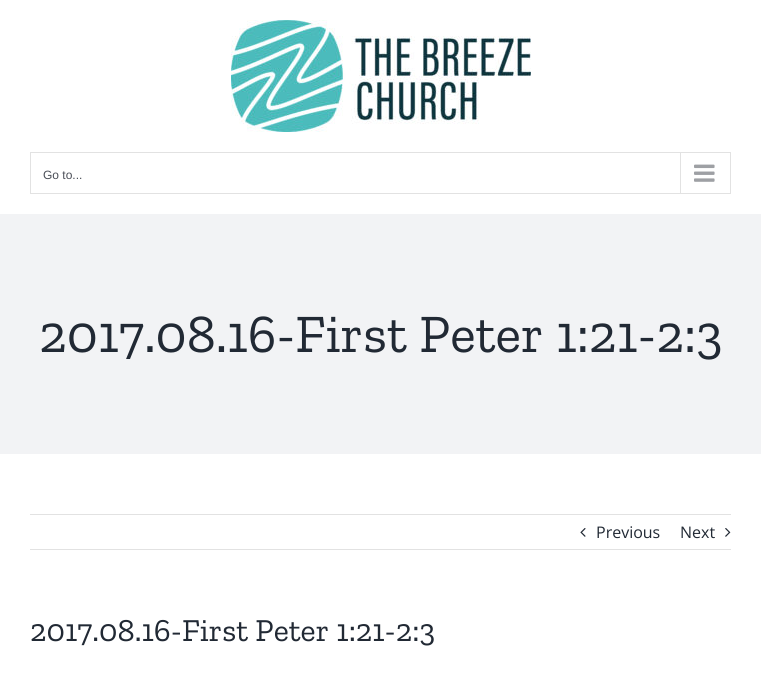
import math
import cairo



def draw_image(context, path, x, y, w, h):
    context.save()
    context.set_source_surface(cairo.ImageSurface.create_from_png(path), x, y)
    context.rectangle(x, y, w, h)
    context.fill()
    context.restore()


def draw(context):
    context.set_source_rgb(1, 1, 1)
    context.paint()
    draw_image(context, "images/1.png", 231, 20, 300, 112)
    context.rectangle(30.5, 152.5, 700, 41)
    context.set_source_rgb(226 / 255, 226 / 255, 226 / 255)
    context.set_line_width(1)
    context.stroke()
    context.rectangle(680, 153, 1, 40)
    context.fill()
    draw_image(context, "images/2.png", 694, 164, 21, 18)
    context.set_source_rgb(242 / 255, 243 / 255, 245 / 255)
    context.rectangle(0, 214, 761, 240)
    context.fill()
    context.set_source_rgb(226 / 255, 226 / 255, 226 / 255)
    context.rectangle(30, 514, 701, 1)
    context.fill()
    context.rectangle(30, 549, 701, 1)
    context.fill()
    draw_image(context, "images/3.png", 580, 528, 6, 9)
    draw_image(context, "images/4.png", 725, 528, 6, 9)
    context.select_font_face("Liberation Sans")
    context.set_font_size(12)
    context.set_source_rgb(74 / 255, 78 / 255, 87 / 255)
    context.move_to(43, 179)
    context.show_text("Go to...")
    context.select_font_face("Zilla Slab")
    context.set_font_size(54)
    context.set_source_rgb(33 / 255, 41 / 255, 52 / 255)
    context.move_to(39, 352)
    context.show_text("2017.08.16-First Peter 1:21-2:3")
    context.select_font_face("Open Sans")
    context.set_font_size(16)
    context.move_to(596, 538)
    context.show_text("Previous")
    context.move_to(680, 538)
    context.show_text("Next")
    context.select_font_face("Zilla Slab")
    context.set_font_size(32)
    context.move_to(30, 641)
    context.show_text("2017.08.16-First Peter 1:21-2:3")


surface = cairo.ImageSurface(cairo.Format.RGB24, 761, 682)
context = cairo.Context(surface)
options = cairo.FontOptions()
options.set_hint_metrics(cairo.HintMetrics.OFF)
options.set_hint_style(cairo.HintStyle.NONE)
context.set_font_options(options)
context.set_miter_limit(4)
draw(context)
surface.write_to_png("out.png")
